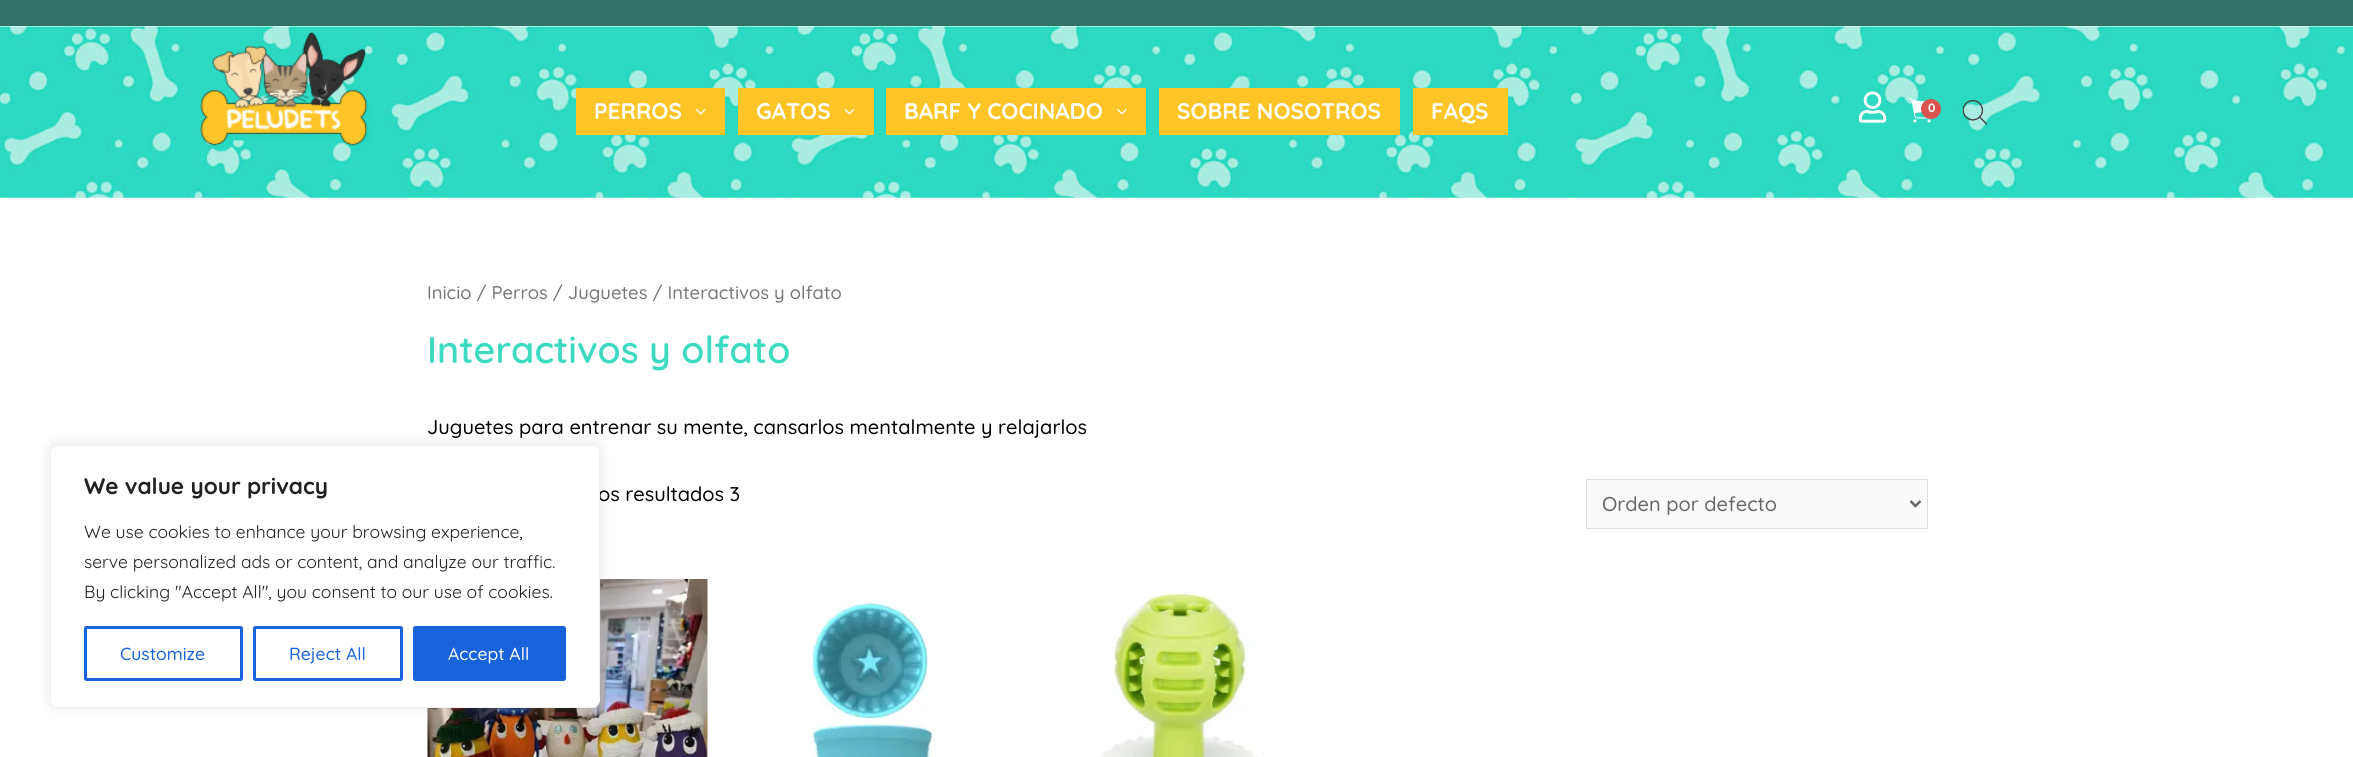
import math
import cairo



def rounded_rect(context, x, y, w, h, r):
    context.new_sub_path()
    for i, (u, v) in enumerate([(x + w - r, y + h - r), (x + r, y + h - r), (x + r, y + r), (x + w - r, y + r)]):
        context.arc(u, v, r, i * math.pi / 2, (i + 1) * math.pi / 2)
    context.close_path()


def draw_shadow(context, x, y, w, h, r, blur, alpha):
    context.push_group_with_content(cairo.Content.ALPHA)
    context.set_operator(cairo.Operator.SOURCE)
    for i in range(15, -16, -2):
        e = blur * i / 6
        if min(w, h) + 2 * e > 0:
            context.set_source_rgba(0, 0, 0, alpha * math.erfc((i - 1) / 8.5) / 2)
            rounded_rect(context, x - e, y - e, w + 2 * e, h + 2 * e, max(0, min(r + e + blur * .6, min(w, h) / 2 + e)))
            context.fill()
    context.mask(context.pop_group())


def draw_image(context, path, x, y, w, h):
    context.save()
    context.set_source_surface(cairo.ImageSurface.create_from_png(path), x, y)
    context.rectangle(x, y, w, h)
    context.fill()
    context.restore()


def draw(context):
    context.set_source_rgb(1, 1, 1)
    context.paint()
    context.set_source_rgb(51 / 255, 114 / 255, 103 / 255)
    context.rectangle(0, 0, 2353, 26)
    context.fill()
    draw_image(context, "images/1.png", 0, 26, 2353, 172)
    draw_image(context, "images/2.png", 200, 32, 173, 120)
    context.set_source_rgb(1, 197 / 255, 39 / 255)
    context.rectangle(576, 88, 149, 47)
    context.fill()
    draw_image(context, "images/3.png", 695, 108, 11, 7)
    context.rectangle(738, 88, 136, 47)
    context.fill()
    draw_image(context, "images/4.png", 844, 108, 11, 7)
    context.rectangle(886, 88, 260, 47)
    context.fill()
    draw_image(context, "images/5.png", 1117, 108, 10, 7)
    context.rectangle(1159, 88, 241, 47)
    context.fill()
    context.rectangle(1413, 88, 95, 47)
    context.fill()
    draw_image(context, "images/6.png", 1858, 91, 29, 32)
    draw_image(context, "images/7.png", 1908, 98, 25, 25)
    context.set_source_rgb(217 / 255, 83 / 255, 79 / 255)
    context.arc(1931, 109, 10, 0, 2 * math.pi)
    context.fill()
    draw_image(context, "images/8.png", 1963, 100, 25, 25)
    context.set_source_rgb(250 / 255, 250 / 255, 250 / 255)
    context.rectangle(1586.5, 479.5, 341, 49)
    context.fill_preserve()
    context.set_source_rgb(221 / 255, 221 / 255, 221 / 255)
    context.set_line_width(1)
    context.stroke()
    context.new_path()
    context.move_to(1910.5, 501)
    context.line_to(1915.5, 506)
    context.line_to(1920.5, 501)
    context.set_source_rgb(102 / 255, 102 / 255, 102 / 255)
    context.set_line_width(2.5)
    context.stroke()
    draw_image(context, "images/9.png", 427, 579, 281, 178)
    draw_image(context, "images/10.png", 811, 601, 124, 156)
    draw_image(context, "images/11.png", 1100, 593, 159, 164)
    context.set_source_rgb(172 / 255, 171 / 255, 171 / 255)
    draw_shadow(context, 50, 444, 550, 262, 8, 6, 0.3)
    context.select_font_face("Quicksand", cairo.FontSlant.NORMAL, cairo.FontWeight.BOLD)
    context.set_font_size(22.5)
    context.set_source_rgb(1, 1, 1)
    context.move_to(594, 119)
    context.show_text("PERROS")
    context.move_to(756, 119)
    context.show_text("GATOS")
    context.move_to(904, 119)
    context.show_text("BARF Y COCINADO")
    context.move_to(1177, 119)
    context.show_text("SOBRE NOSOTROS")
    context.move_to(1431, 119)
    context.show_text("FAQS")
    context.set_font_size(12)
    context.move_to(1928, 112)
    context.show_text("0")
    context.select_font_face("Quicksand Medium")
    context.set_font_size(18.4)
    context.set_source_rgb(119 / 255, 119 / 255, 119 / 255)
    context.move_to(427, 299)
    context.show_text("Inicio / Perros / Juguetes / Interactivos y olfato")
    context.select_font_face("Quicksand SemiBold")
    context.set_font_size(37.5)
    context.set_source_rgb(60 / 255, 219 / 255, 192 / 255)
    context.move_to(427, 363)
    context.show_text("Interactivos y olfato")
    context.select_font_face("Quicksand Medium")
    context.set_font_size(20)
    context.set_source_rgb(0, 0, 0)
    context.move_to(427, 434)
    context.show_text("Juguetes para entrenar su mente, cansarlos mentalmente y relajarlos")
    context.move_to(598, 501)
    context.show_text("os resultados 3")
    context.save()
    context.rectangle(1603, 490, 293, 28)
    context.clip()
    context.set_source_rgb(102 / 255, 102 / 255, 102 / 255)
    context.move_to(1602, 511)
    context.show_text("Orden por defecto")
    context.restore()
    context.set_source_rgb(1, 1, 1)
    rounded_rect(context, 50.5, 445.5, 549, 262, 7.5)
    context.fill_preserve()
    context.set_source_rgb(244 / 255, 244 / 255, 244 / 255)
    context.set_line_width(1)
    context.stroke()
    context.select_font_face("Quicksand", cairo.FontSlant.NORMAL, cairo.FontWeight.BOLD)
    context.set_font_size(22.5)
    context.set_source_rgb(33 / 255, 33 / 255, 33 / 255)
    context.move_to(84, 494)
    context.show_text("We value your privacy")
    context.select_font_face("Quicksand")
    context.set_font_size(17.5)
    context.move_to(84, 538)
    context.show_text("We use cookies to enhance your browsing experience,")
    context.move_to(84, 568)
    context.show_text("serve personalized ads or content, and analyze our traffic.")
    context.move_to(84, 598)
    context.show_text("By clicking \"Accept All\", you consent to our use of cookies.")
    rounded_rect(context, 85.5, 627.5, 156, 52, 1)
    context.set_source_rgb(24 / 255, 99 / 255, 220 / 255)
    context.set_line_width(3)
    context.stroke()
    context.select_font_face("Quicksand Medium")
    context.move_to(120, 660)
    context.show_text("Customize")
    rounded_rect(context, 254.5, 627.5, 147, 52, 1)
    context.stroke()
    context.move_to(289, 660)
    context.show_text("Reject All")
    rounded_rect(context, 414.5, 627.5, 150, 52, 1)
    context.fill_preserve()
    context.stroke()
    context.set_source_rgb(1, 1, 1)
    context.move_to(448, 660)
    context.show_text("Accept All")


surface = cairo.ImageSurface(cairo.Format.RGB24, 2353, 757)
context = cairo.Context(surface)
options = cairo.FontOptions()
options.set_hint_metrics(cairo.HintMetrics.OFF)
options.set_hint_style(cairo.HintStyle.NONE)
context.set_font_options(options)
context.set_miter_limit(4)
draw(context)
surface.write_to_png("out.png")
